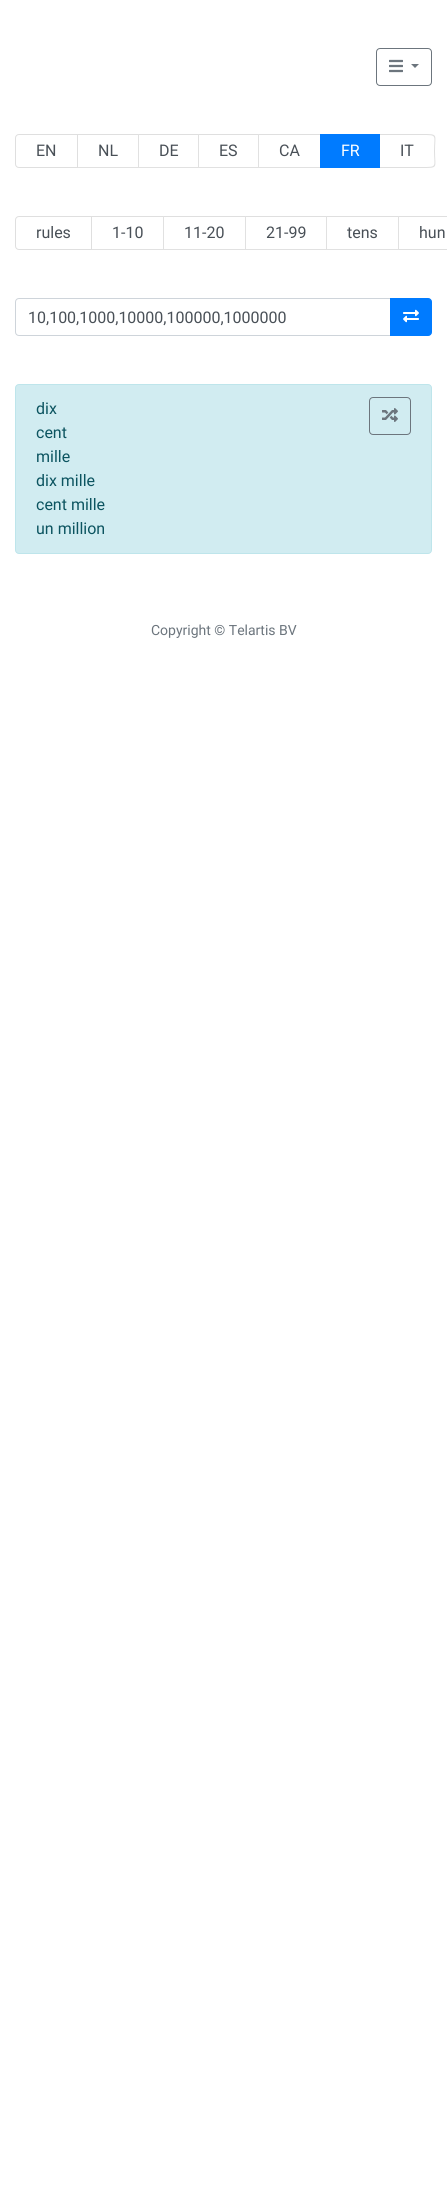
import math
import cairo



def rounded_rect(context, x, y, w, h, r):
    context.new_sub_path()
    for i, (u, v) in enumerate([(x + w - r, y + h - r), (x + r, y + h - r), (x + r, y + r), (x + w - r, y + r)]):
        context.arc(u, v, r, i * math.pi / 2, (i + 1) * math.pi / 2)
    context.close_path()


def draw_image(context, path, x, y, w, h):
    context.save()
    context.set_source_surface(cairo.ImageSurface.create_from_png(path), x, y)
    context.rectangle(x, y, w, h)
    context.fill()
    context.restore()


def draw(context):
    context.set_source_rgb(1, 1, 1)
    context.paint()
    rounded_rect(context, 376.5, 48.5, 55, 37, 3.5)
    context.set_source_rgb(108 / 255, 117 / 255, 125 / 255)
    context.set_line_width(1)
    context.stroke()
    draw_image(context, "images/1.png", 389, 59, 14, 14)
    context.new_path()
    context.move_to(411, 64)
    context.line_to(419, 64)
    context.line_to(415, 68)
    context.close_path()
    context.fill()
    context.new_path()
    context.move_to(19, 134.5)
    context.line_to(77.5, 134.5)
    context.line_to(77.5, 167.5)
    context.line_to(19, 167.5)
    context.curve_to(17, 167.5, 15.5, 166, 15.5, 164)
    context.line_to(15.5, 138)
    context.curve_to(15.5, 136, 17, 134.5, 19, 134.5)
    context.close_path()
    context.set_source_rgb(223 / 255, 223 / 255, 223 / 255)
    context.stroke()
    context.new_path()
    context.move_to(78, 134)
    context.line_to(139, 134)
    context.line_to(138, 135)
    context.line_to(78, 135)
    context.close_path()
    context.fill()
    context.set_source_rgba(0, 0, 0, 0.12)
    context.new_path()
    context.move_to(139, 134)
    context.line_to(139, 168)
    context.line_to(138, 167)
    context.line_to(138, 135)
    context.close_path()
    context.fill()
    context.new_path()
    context.move_to(139, 168)
    context.line_to(78, 168)
    context.line_to(78, 167)
    context.line_to(138, 167)
    context.close_path()
    context.fill()
    context.set_source_rgb(223 / 255, 223 / 255, 223 / 255)
    context.new_path()
    context.move_to(139, 134)
    context.line_to(199, 134)
    context.line_to(198, 135)
    context.line_to(139, 135)
    context.close_path()
    context.fill()
    context.set_source_rgba(0, 0, 0, 0.12)
    context.new_path()
    context.move_to(199, 134)
    context.line_to(199, 168)
    context.line_to(198, 167)
    context.line_to(198, 135)
    context.close_path()
    context.fill()
    context.new_path()
    context.move_to(199, 168)
    context.line_to(139, 168)
    context.line_to(139, 167)
    context.line_to(198, 167)
    context.close_path()
    context.fill()
    context.set_source_rgb(223 / 255, 223 / 255, 223 / 255)
    context.new_path()
    context.move_to(199, 134)
    context.line_to(259, 134)
    context.line_to(258, 135)
    context.line_to(199, 135)
    context.close_path()
    context.fill()
    context.set_source_rgba(0, 0, 0, 0.12)
    context.new_path()
    context.move_to(259, 134)
    context.line_to(259, 168)
    context.line_to(258, 167)
    context.line_to(258, 135)
    context.close_path()
    context.fill()
    context.new_path()
    context.move_to(259, 168)
    context.line_to(199, 168)
    context.line_to(199, 167)
    context.line_to(258, 167)
    context.close_path()
    context.fill()
    context.set_source_rgb(223 / 255, 223 / 255, 223 / 255)
    context.new_path()
    context.move_to(259, 134)
    context.line_to(321, 134)
    context.line_to(320, 135)
    context.line_to(259, 135)
    context.close_path()
    context.fill()
    context.set_source_rgba(0, 0, 0, 0.12)
    context.new_path()
    context.move_to(321, 168)
    context.line_to(259, 168)
    context.line_to(259, 167)
    context.line_to(320, 167)
    context.close_path()
    context.fill()
    context.set_source_rgb(0, 123 / 255, 1)
    context.rectangle(320, 134, 60, 34)
    context.fill()
    context.set_source_rgb(223 / 255, 223 / 255, 223 / 255)
    context.set_fill_rule(cairo.FillRule.EVEN_ODD)
    context.new_path()
    context.move_to(380, 134)
    context.line_to(422, 134)
    context.curve_to(439, 134, 435, 134, 435, 151)
    context.curve_to(435, 168, 439, 168, 422, 168)
    context.line_to(380, 168)
    context.close_path()
    context.move_to(380, 135)
    context.line_to(422, 135)
    context.curve_to(438, 135, 434, 135, 434, 151)
    context.curve_to(434, 167, 438, 167, 422, 167)
    context.line_to(380, 167)
    context.close_path()
    context.fill()
    context.new_path()
    context.move_to(19, 216.5)
    context.line_to(91.5, 216.5)
    context.line_to(91.5, 249.5)
    context.line_to(19, 249.5)
    context.curve_to(17, 249.5, 15.5, 248, 15.5, 246)
    context.line_to(15.5, 220)
    context.curve_to(15.5, 218, 17, 216.5, 19, 216.5)
    context.close_path()
    context.stroke()
    context.set_fill_rule(cairo.FillRule.WINDING)
    context.new_path()
    context.move_to(92, 216)
    context.line_to(164, 216)
    context.line_to(163, 217)
    context.line_to(92, 217)
    context.close_path()
    context.fill()
    context.set_source_rgba(0, 0, 0, 0.12)
    context.new_path()
    context.move_to(164, 216)
    context.line_to(164, 250)
    context.line_to(163, 249)
    context.line_to(163, 217)
    context.close_path()
    context.fill()
    context.new_path()
    context.move_to(164, 250)
    context.line_to(92, 250)
    context.line_to(92, 249)
    context.line_to(163, 249)
    context.close_path()
    context.fill()
    context.set_source_rgb(223 / 255, 223 / 255, 223 / 255)
    context.new_path()
    context.move_to(164, 216)
    context.line_to(246, 216)
    context.line_to(245, 217)
    context.line_to(164, 217)
    context.close_path()
    context.fill()
    context.set_source_rgba(0, 0, 0, 0.12)
    context.new_path()
    context.move_to(246, 216)
    context.line_to(246, 250)
    context.line_to(245, 249)
    context.line_to(245, 217)
    context.close_path()
    context.fill()
    context.new_path()
    context.move_to(246, 250)
    context.line_to(164, 250)
    context.line_to(164, 249)
    context.line_to(245, 249)
    context.close_path()
    context.fill()
    context.set_source_rgb(223 / 255, 223 / 255, 223 / 255)
    context.new_path()
    context.move_to(246, 216)
    context.line_to(327, 216)
    context.line_to(326, 217)
    context.line_to(246, 217)
    context.close_path()
    context.fill()
    context.set_source_rgba(0, 0, 0, 0.12)
    context.new_path()
    context.move_to(327, 216)
    context.line_to(327, 250)
    context.line_to(326, 249)
    context.line_to(326, 217)
    context.close_path()
    context.fill()
    context.new_path()
    context.move_to(327, 250)
    context.line_to(246, 250)
    context.line_to(246, 249)
    context.line_to(326, 249)
    context.close_path()
    context.fill()
    context.set_source_rgb(223 / 255, 223 / 255, 223 / 255)
    context.new_path()
    context.move_to(327, 216)
    context.line_to(399, 216)
    context.line_to(398, 217)
    context.line_to(327, 217)
    context.close_path()
    context.fill()
    context.set_source_rgba(0, 0, 0, 0.12)
    context.new_path()
    context.move_to(399, 216)
    context.line_to(399, 250)
    context.line_to(398, 249)
    context.line_to(398, 217)
    context.close_path()
    context.fill()
    context.new_path()
    context.move_to(399, 250)
    context.line_to(327, 250)
    context.line_to(327, 249)
    context.line_to(398, 249)
    context.close_path()
    context.fill()
    context.set_source_rgb(223 / 255, 223 / 255, 223 / 255)
    context.new_path()
    context.move_to(399, 216)
    context.line_to(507, 216)
    context.line_to(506, 217)
    context.line_to(399, 217)
    context.close_path()
    context.move_to(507, 250)
    context.line_to(399, 250)
    context.line_to(399, 249)
    context.line_to(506, 249)
    context.close_path()
    context.fill()
    context.new_path()
    context.move_to(19, 298.5)
    context.line_to(390.5, 298.5)
    context.line_to(390.5, 335.5)
    context.line_to(19, 335.5)
    context.curve_to(17, 335.5, 15.5, 334, 15.5, 332)
    context.line_to(15.5, 302)
    context.curve_to(15.5, 300, 17, 298.5, 19, 298.5)
    context.close_path()
    context.set_source_rgb(206 / 255, 212 / 255, 218 / 255)
    context.stroke()
    context.set_source_rgb(0, 123 / 255, 1)
    context.new_path()
    context.move_to(390.5, 298.5)
    context.line_to(428, 298.5)
    context.curve_to(430, 298.5, 431.5, 300, 431.5, 302)
    context.line_to(431.5, 332)
    context.curve_to(431.5, 334, 430, 335.5, 428, 335.5)
    context.line_to(390.5, 335.5)
    context.close_path()
    context.fill_preserve()
    context.stroke()
    draw_image(context, "images/2.png", 403, 309, 16, 14)
    context.set_source_rgb(209 / 255, 236 / 255, 241 / 255)
    rounded_rect(context, 15.5, 384.5, 416, 169, 3.5)
    context.fill_preserve()
    context.set_source_rgb(190 / 255, 229 / 255, 235 / 255)
    context.stroke()
    rounded_rect(context, 369.5, 397.5, 41, 37, 3.5)
    context.set_source_rgb(108 / 255, 117 / 255, 125 / 255)
    context.stroke()
    draw_image(context, "images/3.png", 382, 408, 16, 14)
    context.select_font_face("Roboto")
    context.set_font_size(16)
    context.set_source_rgb(73 / 255, 80 / 255, 87 / 255)
    context.move_to(36, 156)
    context.show_text("EN")
    context.move_to(98, 156)
    context.show_text("NL")
    context.move_to(159, 156)
    context.show_text("DE")
    context.move_to(219, 156)
    context.show_text("ES")
    context.move_to(279, 156)
    context.show_text("CA")
    context.set_source_rgb(1, 1, 1)
    context.move_to(341, 156)
    context.show_text("FR")
    context.set_source_rgb(73 / 255, 80 / 255, 87 / 255)
    context.move_to(400, 156)
    context.show_text("IT")
    context.move_to(36, 238)
    context.show_text("rules")
    context.move_to(112, 238)
    context.show_text("1-10")
    context.move_to(184, 238)
    context.show_text("11-20")
    context.move_to(266, 238)
    context.show_text("21-99")
    context.move_to(347, 238)
    context.show_text("tens")
    context.move_to(419, 238)
    context.show_text("hun")
    context.move_to(28, 323)
    context.show_text("10,100,1000,10000,100000,1000000")
    context.set_source_rgb(12 / 255, 84 / 255, 96 / 255)
    context.move_to(36, 414)
    context.show_text("dix")
    context.move_to(36, 438)
    context.show_text("cent")
    context.move_to(36, 462)
    context.show_text("mille")
    context.move_to(36, 486)
    context.show_text("dix mille")
    context.move_to(36, 510)
    context.show_text("cent mille")
    context.move_to(36, 534)
    context.show_text("un million")
    context.set_font_size(14)
    context.set_source_rgb(108 / 255, 117 / 255, 125 / 255)
    context.move_to(151, 635)
    context.show_text("Copyright © Telartis BV")


surface = cairo.ImageSurface(cairo.Format.RGB24, 447, 2196)
context = cairo.Context(surface)
options = cairo.FontOptions()
options.set_hint_metrics(cairo.HintMetrics.OFF)
options.set_hint_style(cairo.HintStyle.NONE)
context.set_font_options(options)
context.set_miter_limit(4)
draw(context)
surface.write_to_png("out.png")
